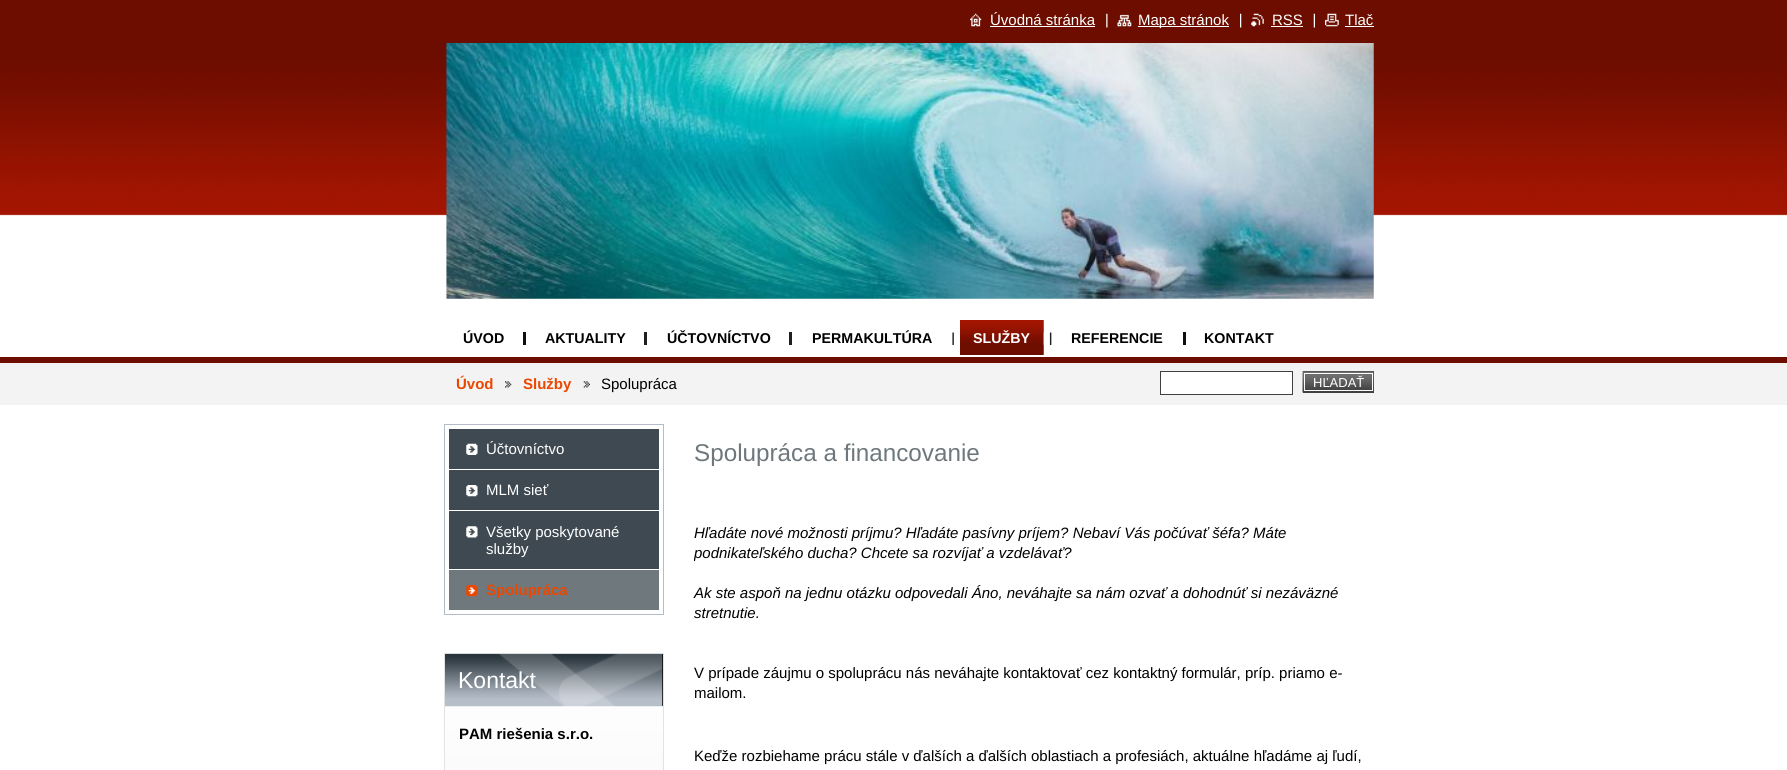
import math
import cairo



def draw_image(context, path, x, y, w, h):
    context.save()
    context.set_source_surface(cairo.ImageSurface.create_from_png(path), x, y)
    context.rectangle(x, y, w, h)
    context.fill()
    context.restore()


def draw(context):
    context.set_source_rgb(1, 1, 1)
    context.paint()
    context.set_source_rgb(108 / 255, 13 / 255, 0)
    context.rectangle(0, 0, 1787, 43)
    context.fill()
    draw_image(context, "images/1.png", 970, 13, 12, 14)
    context.set_source_rgb(1, 1, 1)
    context.rectangle(990, 26, 105, 1)
    context.fill()
    draw_image(context, "images/2.png", 1106, 13, 2, 15)
    draw_image(context, "images/3.png", 1117, 14, 15, 13)
    context.rectangle(1138, 26, 91, 1)
    context.fill()
    draw_image(context, "images/4.png", 1240, 13, 2, 15)
    draw_image(context, "images/5.png", 1251, 13, 13, 14)
    context.rectangle(1271, 26, 32, 1)
    context.fill()
    draw_image(context, "images/6.png", 1313, 13, 2, 15)
    draw_image(context, "images/7.png", 1325, 13, 14, 14)
    context.rectangle(1345, 26, 29, 1)
    context.fill()
    draw_image(context, "images/8.png", 0, 43, 1787, 173)
    draw_image(context, "images/9.png", 446, 43, 928, 256)
    context.set_source_rgb(15 / 255, 15 / 255, 15 / 255)
    context.rectangle(523, 332, 3, 13)
    context.fill()
    context.set_source_rgb(31 / 255, 31 / 255, 31 / 255)
    context.rectangle(644, 332, 3, 13)
    context.fill()
    context.rectangle(789, 332, 3, 13)
    context.fill()
    draw_image(context, "images/10.png", 952, 332, 2, 13)
    draw_image(context, "images/11.png", 960, 320, 84, 35)
    draw_image(context, "images/12.png", 1043, 332, 9, 13)
    context.set_source_rgb(15 / 255, 15 / 255, 15 / 255)
    context.rectangle(1183, 332, 3, 13)
    context.fill()
    context.set_source_rgb(243 / 255, 243 / 255, 243 / 255)
    context.rectangle(0, 363, 1787, 42)
    context.fill()
    context.set_source_rgb(108 / 255, 13 / 255, 0)
    context.rectangle(0, 357, 1787, 6)
    context.fill()
    draw_image(context, "images/13.png", 505, 381, 7, 7)
    draw_image(context, "images/14.png", 583, 381, 7, 7)
    context.set_source_rgb(1, 1, 1)
    context.rectangle(1160.5, 371.5, 132, 23)
    context.fill_preserve()
    context.set_source_rgb(64 / 255, 64 / 255, 64 / 255)
    context.set_line_width(1)
    context.stroke()
    context.rectangle(1303, 371, 71, 22)
    context.fill()
    draw_image(context, "images/15.png", 1302, 371, 72, 22)
    draw_image(context, "images/16.png", 1305, 374, 67, 16)
    context.rectangle(1304.5, 373.5, 68, 17)
    context.set_source_rgb(1, 1, 1)
    context.stroke()
    context.rectangle(444.5, 424.5, 219, 190)
    context.set_source_rgb(180 / 255, 188 / 255, 199 / 255)
    context.stroke()
    context.set_source_rgb(62 / 255, 73 / 255, 81 / 255)
    context.rectangle(449, 429, 210, 40)
    context.fill()
    draw_image(context, "images/17.png", 466, 443, 12, 12)
    context.rectangle(449, 470, 210, 40)
    context.fill()
    draw_image(context, "images/18.png", 466, 485, 12, 12)
    context.rectangle(449, 511, 210, 58)
    context.fill()
    draw_image(context, "images/19.png", 466, 526, 12, 12)
    context.set_source_rgb(111 / 255, 120 / 255, 125 / 255)
    context.rectangle(449, 570, 210, 40)
    context.fill()
    draw_image(context, "images/20.png", 466, 585, 12, 12)
    draw_image(context, "images/21.png", 445, 706, 218, 64)
    context.rectangle(444.5, 653.5, 219, 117)
    context.set_source_rgb(227 / 255, 227 / 255, 227 / 255)
    context.stroke()
    context.set_source_rgb(0, 0, 0)
    context.rectangle(662, 654, 1, 52)
    context.fill()
    draw_image(context, "images/22.png", 445, 653, 218, 54)
    context.select_font_face("Liberation Sans")
    context.set_font_size(15)
    context.set_source_rgb(1, 1, 1)
    context.move_to(990, 25)
    context.show_text("Úvodná stránka")
    context.move_to(1138, 25)
    context.show_text("Mapa stránok")
    context.move_to(1272, 25)
    context.show_text("RSS")
    context.move_to(1345, 25)
    context.show_text("Tlač")
    context.select_font_face("Liberation Sans", cairo.FontSlant.NORMAL, cairo.FontWeight.BOLD)
    context.set_font_size(14.25)
    context.set_source_rgb(0, 0, 0)
    context.move_to(463, 343)
    context.show_text("ÚVOD")
    context.move_to(545, 343)
    context.show_text("AKTUALITY")
    context.move_to(667, 343)
    context.show_text("ÚČTOVNÍCTVO")
    context.move_to(812, 343)
    context.show_text("PERMAKULTÚRA")
    context.set_source_rgb(1, 1, 1)
    context.move_to(973, 343)
    context.show_text("SLUŽBY")
    context.set_source_rgb(0, 0, 0)
    context.move_to(1071, 343)
    context.show_text("REFERENCIE")
    context.move_to(1204, 343)
    context.show_text("KONTAKT")
    context.set_font_size(15)
    context.set_source_rgb(236 / 255, 71 / 255, 0)
    context.move_to(456, 389)
    context.show_text("Úvod")
    context.move_to(523, 389)
    context.show_text("Služby")
    context.select_font_face("Liberation Sans")
    context.set_source_rgb(0, 0, 0)
    context.move_to(601, 389)
    context.show_text("Spolupráca")
    context.set_font_size(13)
    context.set_source_rgb(1, 1, 1)
    context.move_to(1313, 387)
    context.show_text("HĽADAŤ")
    context.set_font_size(15)
    context.move_to(486, 454)
    context.show_text("Účtovníctvo")
    context.move_to(486, 495)
    context.show_text("MLM sieť")
    context.move_to(486, 537)
    context.show_text("Všetky poskytované")
    context.move_to(486, 554)
    context.show_text("služby")
    context.select_font_face("Liberation Sans", cairo.FontSlant.NORMAL, cairo.FontWeight.BOLD)
    context.set_source_rgb(236 / 255, 71 / 255, 0)
    context.move_to(486, 595)
    context.show_text("Spolupráca")
    context.select_font_face("Liberation Sans")
    context.set_font_size(23)
    context.set_source_rgb(1, 1, 1)
    context.move_to(458, 688)
    context.show_text("Kontakt")
    context.select_font_face("Liberation Sans", cairo.FontSlant.NORMAL, cairo.FontWeight.BOLD)
    context.set_font_size(15)
    context.set_source_rgb(0, 0, 0)
    context.move_to(459, 739)
    context.show_text("PAM riešenia s.r.o.")
    context.select_font_face("Liberation Sans")
    context.set_font_size(24.25)
    context.set_source_rgb(110 / 255, 120 / 255, 124 / 255)
    context.move_to(694, 461)
    context.show_text("Spolupráca a financovanie")
    context.select_font_face("Liberation Sans", cairo.FontSlant.ITALIC)
    context.set_font_size(15)
    context.set_source_rgb(0, 0, 0)
    context.move_to(694, 538)
    context.show_text("Hľadáte nové možnosti príjmu? Hľadáte pasívny príjem? Nebaví Vás počúvať šéfa? Máte")
    context.save()
    context.rectangle(694, 424, 680, 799)
    context.clip()
    context.move_to(694, 558)
    context.show_text("podnikateľského ducha? Chcete sa rozvíjať a vzdelávať?")
    context.restore()
    context.move_to(694, 598)
    context.show_text("Ak ste aspoň na jednu otázku odpovedali Áno, neváhajte sa nám ozvať a dohodnúť si nezáväzné")
    context.move_to(694, 618)
    context.show_text("stretnutie.")
    context.select_font_face("Liberation Sans")
    context.move_to(694, 678)
    context.show_text("V prípade záujmu o spoluprácu nás neváhajte kontaktovať cez kontaktný formulár, príp. priamo e-")
    context.move_to(694, 698)
    context.show_text("mailom.")
    context.move_to(694, 761)
    context.show_text("Keďže rozbiehame prácu stále v ďalších a ďalších oblastiach a profesiách, aktuálne hľadáme aj ľudí,")


surface = cairo.ImageSurface(cairo.Format.RGB24, 1787, 770)
context = cairo.Context(surface)
options = cairo.FontOptions()
options.set_hint_metrics(cairo.HintMetrics.OFF)
options.set_hint_style(cairo.HintStyle.NONE)
context.set_font_options(options)
context.set_miter_limit(4)
draw(context)
surface.write_to_png("out.png")
